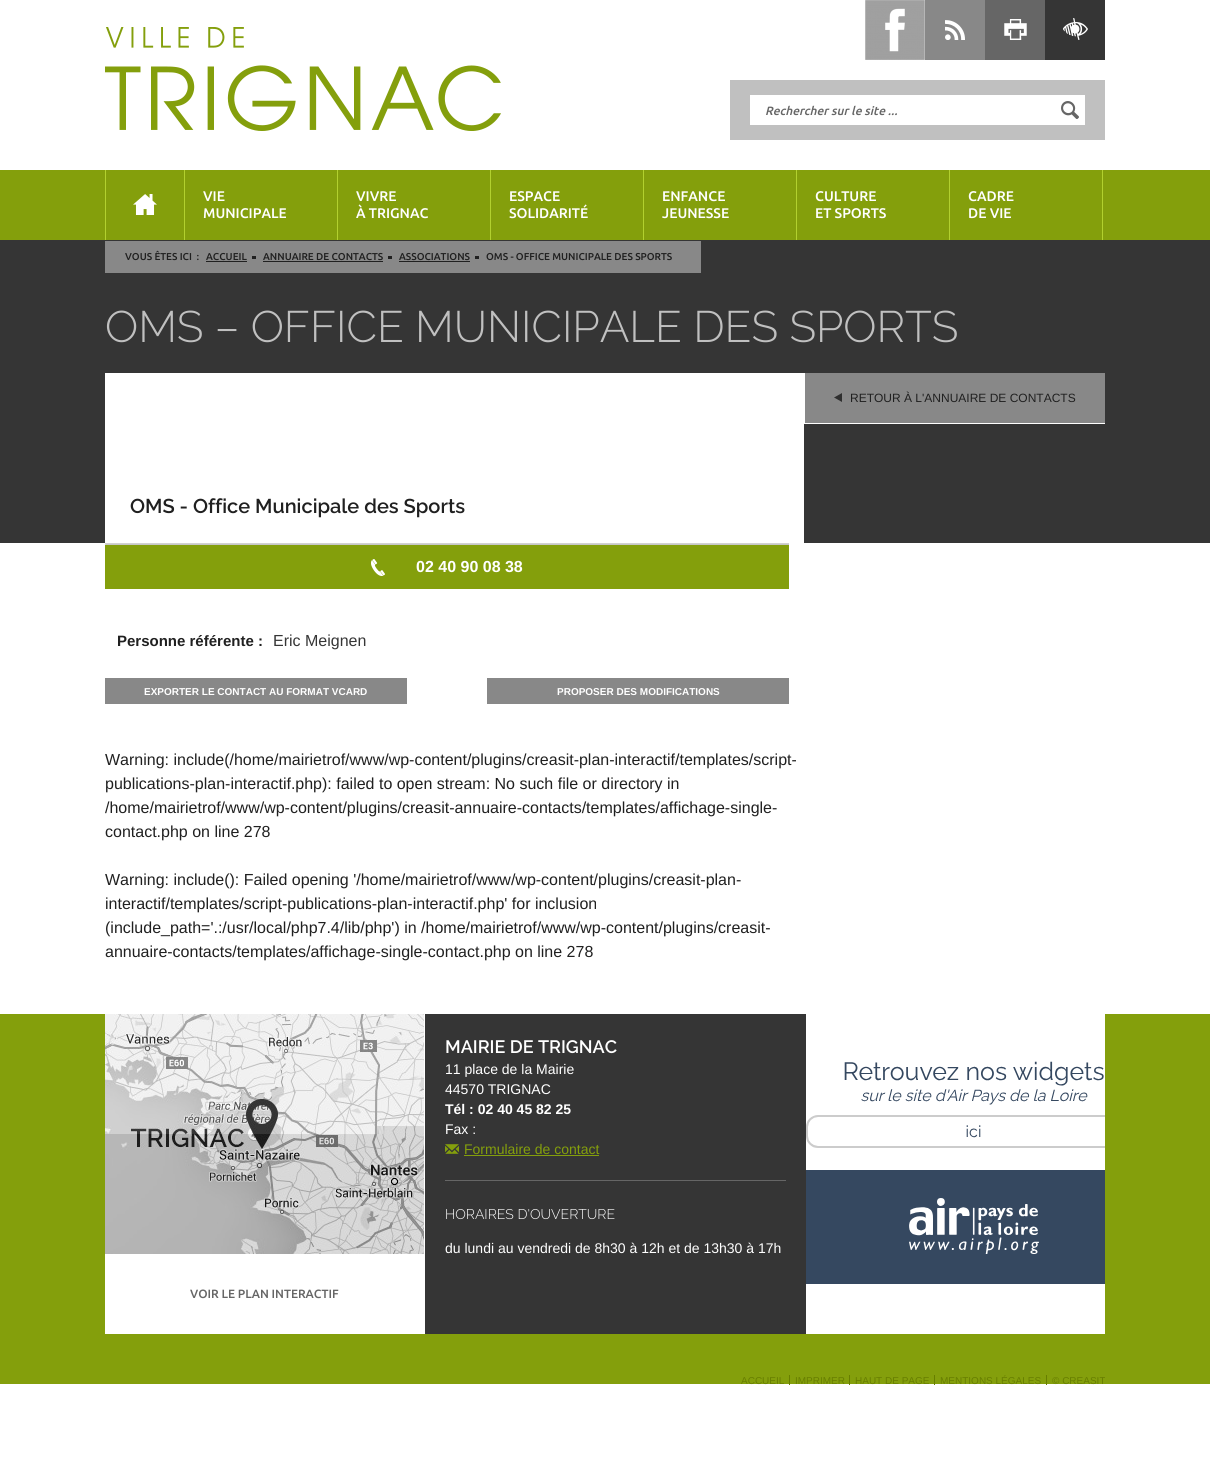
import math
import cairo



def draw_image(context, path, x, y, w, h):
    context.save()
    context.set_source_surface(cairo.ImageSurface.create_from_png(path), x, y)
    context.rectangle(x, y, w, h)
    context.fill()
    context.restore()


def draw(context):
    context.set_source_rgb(1, 1, 1)
    context.paint()
    draw_image(context, "images/1.png", 105, 27, 396, 104)
    draw_image(context, "images/2.png", 865, 0, 60, 60)
    context.set_source_rgb(136 / 255, 136 / 255, 136 / 255)
    context.rectangle(925, 0, 60, 60)
    context.fill()
    draw_image(context, "images/3.png", 945, 20, 20, 20)
    context.set_source_rgb(102 / 255, 102 / 255, 102 / 255)
    context.rectangle(985, 0, 60, 60)
    context.fill()
    draw_image(context, "images/4.png", 1004, 19, 23, 21)
    context.set_source_rgb(53 / 255, 53 / 255, 53 / 255)
    context.rectangle(1045, 0, 60, 60)
    context.fill()
    draw_image(context, "images/5.png", 1063, 18, 25, 22)
    context.set_source_rgb(192 / 255, 192 / 255, 192 / 255)
    context.rectangle(750, 80, 335, 15)
    context.fill()
    context.rectangle(1085, 80, 20, 45)
    context.fill()
    context.rectangle(750, 125, 355, 15)
    context.fill()
    context.rectangle(730, 80, 20, 60)
    context.fill()
    draw_image(context, "images/6.png", 1061, 101, 18, 18)
    context.set_source_rgb(132 / 255, 159 / 255, 12 / 255)
    context.rectangle(0, 170, 1210, 70)
    context.fill()
    context.set_source_rgb(178 / 255, 208 / 255, 47 / 255)
    context.rectangle(184, 170, 1, 70)
    context.fill()
    context.rectangle(105, 170, 1, 70)
    context.fill()
    draw_image(context, "images/7.png", 133, 194, 24, 21)
    context.rectangle(337, 170, 1, 70)
    context.fill()
    context.rectangle(490, 170, 1, 70)
    context.fill()
    context.rectangle(643, 170, 1, 70)
    context.fill()
    context.rectangle(796, 170, 1, 70)
    context.fill()
    context.rectangle(949, 170, 1, 70)
    context.fill()
    context.rectangle(1102, 170, 1, 70)
    context.fill()
    context.set_source_rgb(53 / 255, 53 / 255, 53 / 255)
    context.rectangle(0, 240, 1210, 303)
    context.fill()
    context.set_source_rgb(136 / 255, 136 / 255, 136 / 255)
    context.rectangle(105, 241, 596, 32)
    context.fill()
    context.set_source_rgb(32 / 255, 32 / 255, 32 / 255)
    context.rectangle(252, 256, 4, 3)
    context.fill()
    context.rectangle(206, 261, 41, 1)
    context.fill()
    context.rectangle(388, 256, 4, 3)
    context.fill()
    context.rectangle(263, 261, 120, 1)
    context.fill()
    context.rectangle(475, 256, 4, 3)
    context.fill()
    context.rectangle(399, 261, 71, 1)
    context.fill()
    context.set_source_rgb(1, 1, 1)
    context.rectangle(105, 373, 699, 170)
    context.fill()
    context.set_source_rgb(209 / 255, 209 / 255, 209 / 255)
    context.rectangle(105, 543, 684, 1)
    context.fill()
    context.rectangle(788, 543, 1, 2)
    context.fill()
    context.set_source_rgb(199 / 255, 199 / 255, 199 / 255)
    context.rectangle(105, 544, 684, 1)
    context.fill()
    context.set_source_rgb(209 / 255, 209 / 255, 209 / 255)
    context.rectangle(105, 543, 1, 2)
    context.fill()
    context.set_source_rgb(132 / 255, 159 / 255, 12 / 255)
    context.rectangle(105, 545, 684, 44)
    context.fill()
    draw_image(context, "images/8.png", 371, 559, 14, 17)
    context.set_source_rgb(136 / 255, 136 / 255, 136 / 255)
    context.rectangle(105, 678, 302, 26)
    context.fill()
    context.rectangle(487, 678, 302, 26)
    context.fill()
    context.set_source_rgb(1, 1, 1)
    context.rectangle(804, 373, 1, 51)
    context.fill()
    context.set_source_rgb(136 / 255, 136 / 255, 136 / 255)
    context.rectangle(805, 373, 300, 50)
    context.fill()
    context.set_source_rgb(1, 1, 1)
    context.rectangle(805, 423, 300, 1)
    context.fill()
    context.set_source_rgb(47 / 255, 47 / 255, 47 / 255)
    context.new_path()
    context.move_to(834, 397.5)
    context.line_to(842, 393)
    context.line_to(842, 402)
    context.close_path()
    context.fill()
    context.set_source_rgb(132 / 255, 159 / 255, 12 / 255)
    context.rectangle(0, 1014, 1210, 370)
    context.fill()
    context.set_source_rgb(53 / 255, 53 / 255, 53 / 255)
    context.rectangle(425, 1014, 381, 320)
    context.fill()
    context.set_source_rgb(1, 1, 1)
    context.rectangle(424, 1014, 1, 320)
    context.fill()
    draw_image(context, "images/9.png", 445, 1144, 14, 10)
    context.set_source_rgb(132 / 255, 159 / 255, 12 / 255)
    context.rectangle(464, 1155, 135, 1)
    context.fill()
    context.set_source_rgb(102 / 255, 102 / 255, 102 / 255)
    context.rectangle(445, 1180, 341, 1)
    context.fill()
    context.set_source_rgb(1, 1, 1)
    context.rectangle(806, 1014, 299, 320)
    context.fill()
    draw_image(context, "images/10.png", 806, 1061, 299, 223)
    draw_image(context, "images/11.png", 105, 1014, 319, 240)
    context.rectangle(105, 1254, 319, 80)
    context.fill()
    context.set_source_rgb(103 / 255, 126 / 255, 0)
    context.rectangle(789, 1375, 1, 10)
    context.fill()
    context.rectangle(849, 1375, 1, 10)
    context.fill()
    context.rectangle(934, 1375, 1, 10)
    context.fill()
    context.rectangle(1046, 1375, 1, 10)
    context.fill()
    context.select_font_face("Ubuntu Medium", cairo.FontSlant.ITALIC)
    context.set_font_size(12)
    context.set_source_rgb(102 / 255, 102 / 255, 102 / 255)
    context.move_to(765, 115)
    context.show_text("Rechercher sur le site ...")
    context.select_font_face("Ubuntu Medium")
    context.set_font_size(14)
    context.set_source_rgb(1, 1, 1)
    context.move_to(203, 201)
    context.show_text("VIE")
    context.move_to(203, 218)
    context.show_text("MUNICIPALE")
    context.move_to(356, 201)
    context.show_text("VIVRE")
    context.move_to(356, 218)
    context.show_text("À TRIGNAC")
    context.move_to(509, 201)
    context.show_text("ESPACE")
    context.move_to(509, 218)
    context.show_text("SOLIDARITÉ")
    context.move_to(662, 201)
    context.show_text("ENFANCE")
    context.move_to(662, 218)
    context.show_text("JEUNESSE")
    context.move_to(815, 201)
    context.show_text("CULTURE")
    context.move_to(815, 218)
    context.show_text("ET SPORTS")
    context.move_to(968, 201)
    context.show_text("CADRE")
    context.move_to(968, 218)
    context.show_text("DE VIE")
    context.set_font_size(10)
    context.set_source_rgb(32 / 255, 32 / 255, 32 / 255)
    context.move_to(125, 260)
    context.show_text("VOUS ÊTES ICI  :")
    context.move_to(206, 260)
    context.show_text("ACCUEIL")
    context.move_to(263, 260)
    context.show_text("ANNUAIRE DE CONTACTS")
    context.move_to(399, 260)
    context.show_text("ASSOCIATIONS")
    context.move_to(486, 260)
    context.show_text("OMS - OFFICE MUNICIPALE DES SPORTS")
    context.select_font_face("Raleway Light")
    context.set_font_size(44)
    context.set_source_rgb(192 / 255, 192 / 255, 192 / 255)
    context.move_to(105, 342)
    context.show_text("OMS – OFFICE MUNICIPALE DES SPORTS")
    context.select_font_face("Raleway SemiBold")
    context.set_font_size(20)
    context.set_source_rgb(32 / 255, 32 / 255, 32 / 255)
    context.move_to(130, 513)
    context.show_text("OMS - Office Municipale des Sports")
    context.select_font_face("Liberation Sans", cairo.FontSlant.NORMAL, cairo.FontWeight.BOLD)
    context.set_font_size(16)
    context.set_source_rgb(1, 1, 1)
    context.move_to(416, 572)
    context.show_text("02 40 90 08 38")
    context.set_font_size(15)
    context.set_source_rgb(32 / 255, 32 / 255, 32 / 255)
    context.move_to(117, 646)
    context.show_text("Personne référente :")
    context.select_font_face("Liberation Sans")
    context.set_font_size(16)
    context.set_source_rgb(54 / 255, 54 / 255, 54 / 255)
    context.move_to(273, 646)
    context.show_text("Eric Meignen")
    context.select_font_face("Liberation Sans", cairo.FontSlant.NORMAL, cairo.FontWeight.BOLD)
    context.set_font_size(10)
    context.set_source_rgb(1, 1, 1)
    context.move_to(144, 695)
    context.show_text("EXPORTER LE CONTACT AU FORMAT VCARD")
    context.move_to(557, 695)
    context.show_text("PROPOSER DES MODIFICATIONS")
    context.select_font_face("Liberation Sans")
    context.set_font_size(16)
    context.set_source_rgb(32 / 255, 32 / 255, 32 / 255)
    context.move_to(105, 765)
    context.show_text("Warning: include(/home/mairietrof/www/wp-content/plugins/creasit-plan-interactif/templates/script-")
    context.move_to(105, 789)
    context.show_text("publications-plan-interactif.php): failed to open stream: No such file or directory in")
    context.move_to(105, 813)
    context.show_text("/home/mairietrof/www/wp-content/plugins/creasit-annuaire-contacts/templates/affichage-single-")
    context.move_to(105, 837)
    context.show_text("contact.php on line 278")
    context.move_to(105, 885)
    context.show_text("Warning: include(): Failed opening '/home/mairietrof/www/wp-content/plugins/creasit-plan-")
    context.move_to(105, 909)
    context.show_text("interactif/templates/script-publications-plan-interactif.php' for inclusion")
    context.move_to(105, 933)
    context.show_text("(include_path='.:/usr/local/php7.4/lib/php') in /home/mairietrof/www/wp-content/plugins/creasit-")
    context.move_to(105, 957)
    context.show_text("annuaire-contacts/templates/affichage-single-contact.php on line 278")
    context.set_font_size(12)
    context.move_to(850, 402)
    context.show_text("RETOUR À L'ANNUAIRE DE CONTACTS")
    context.select_font_face("Raleway SemiBold")
    context.set_font_size(18)
    context.set_source_rgb(1, 1, 1)
    context.move_to(445, 1053)
    context.show_text("MAIRIE DE TRIGNAC")
    context.select_font_face("Liberation Sans")
    context.set_font_size(14)
    context.move_to(445, 1074)
    context.show_text("11 place de la Mairie")
    context.move_to(445, 1094)
    context.show_text("44570 TRIGNAC")
    context.select_font_face("Liberation Sans", cairo.FontSlant.NORMAL, cairo.FontWeight.BOLD)
    context.move_to(445, 1114)
    context.show_text("Tél : 02 40 45 82 25")
    context.select_font_face("Liberation Sans")
    context.move_to(445, 1134)
    context.show_text("Fax :")
    context.set_source_rgb(132 / 255, 159 / 255, 12 / 255)
    context.move_to(464, 1154)
    context.show_text("Formulaire de contact")
    context.select_font_face("Raleway Light")
    context.set_source_rgb(1, 1, 1)
    context.move_to(445, 1219)
    context.show_text("HORAIRES D'OUVERTURE")
    context.select_font_face("Liberation Sans")
    context.move_to(445, 1253)
    context.show_text("du lundi au vendredi de 8h30 à 12h et de 13h30 à 17h")
    context.select_font_face("Ubuntu Medium")
    context.set_font_size(12)
    context.set_source_rgb(102 / 255, 102 / 255, 102 / 255)
    context.move_to(190, 1298)
    context.show_text("VOIR LE PLAN INTERACTIF")
    context.select_font_face("Liberation Sans")
    context.set_font_size(10)
    context.set_source_rgb(103 / 255, 126 / 255, 0)
    context.move_to(741, 1384)
    context.show_text("ACCUEIL")
    context.move_to(795, 1384)
    context.show_text("IMPRIMER")
    context.move_to(855, 1384)
    context.show_text("HAUT DE PAGE")
    context.move_to(940, 1384)
    context.show_text("MENTIONS LÉGALES")
    context.move_to(1052, 1384)
    context.show_text("© CREASIT")


surface = cairo.ImageSurface(cairo.Format.RGB24, 1210, 1469)
context = cairo.Context(surface)
options = cairo.FontOptions()
options.set_hint_metrics(cairo.HintMetrics.OFF)
options.set_hint_style(cairo.HintStyle.NONE)
context.set_font_options(options)
context.set_miter_limit(4)
draw(context)
surface.write_to_png("out.png")
